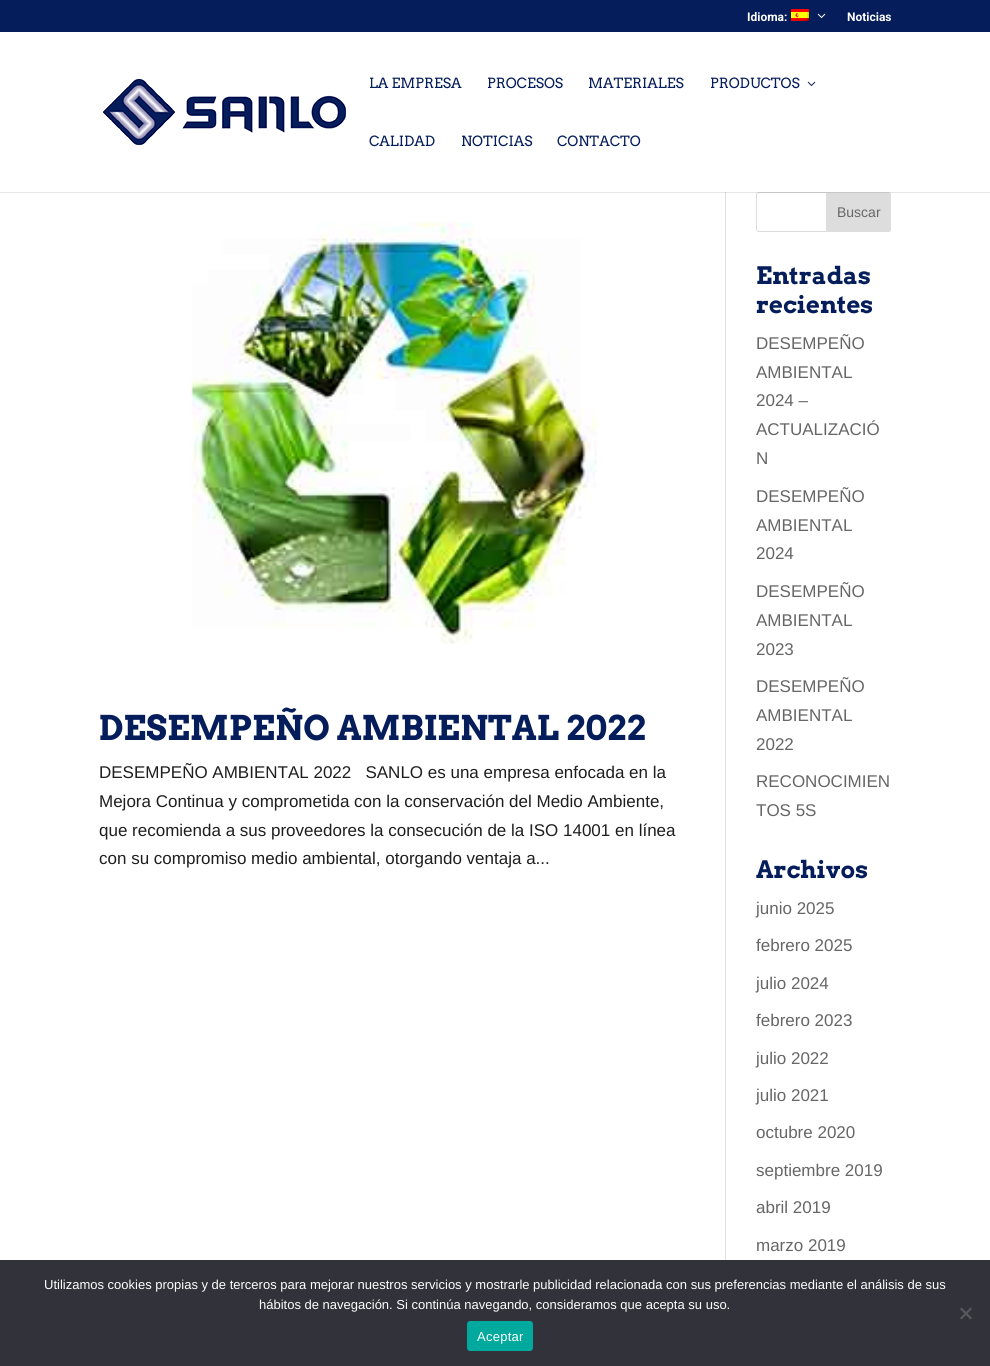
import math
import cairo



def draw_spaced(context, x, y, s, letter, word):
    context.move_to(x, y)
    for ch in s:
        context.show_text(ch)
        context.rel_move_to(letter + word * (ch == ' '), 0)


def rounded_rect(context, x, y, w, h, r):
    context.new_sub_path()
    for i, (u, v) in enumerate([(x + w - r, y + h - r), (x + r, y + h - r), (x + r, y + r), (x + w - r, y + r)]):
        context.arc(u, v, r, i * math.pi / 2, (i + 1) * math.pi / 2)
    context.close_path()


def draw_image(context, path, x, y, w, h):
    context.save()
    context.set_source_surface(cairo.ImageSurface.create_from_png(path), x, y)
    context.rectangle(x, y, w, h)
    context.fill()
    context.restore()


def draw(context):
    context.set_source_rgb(1, 1, 1)
    context.paint()
    context.set_source_rgb(5 / 255, 29 / 255, 91 / 255)
    context.rectangle(0, 0, 990, 32)
    context.fill()
    draw_image(context, "images/1.png", 791, 9, 18, 12)
    draw_image(context, "images/2.png", 817, 13, 9, 5)
    context.set_source_rgb(226 / 255, 226 / 255, 226 / 255)
    context.rectangle(725, 192, 1, 1068)
    context.fill()
    rounded_rect(context, 756.5, 192.5, 134, 39, 2.5)
    context.set_source_rgb(221 / 255, 221 / 255, 221 / 255)
    context.set_line_width(1)
    context.stroke()
    context.new_path()
    context.move_to(826.5, 192.5)
    context.line_to(888, 192.5)
    context.curve_to(889.5, 192.5, 890.5, 193.5, 890.5, 195)
    context.line_to(890.5, 229)
    context.curve_to(890.5, 230.5, 889.5, 231.5, 888, 231.5)
    context.line_to(826.5, 231.5)
    context.close_path()
    context.fill_preserve()
    context.stroke()
    context.set_source_rgba(0, 0, 0, 0.1)
    context.rectangle(0, 192, 990, 1)
    context.fill()
    draw_image(context, "images/3.png", 103, 79, 243, 66)
    draw_image(context, "images/4.png", 807, 81, 9, 5)
    draw_image(context, "images/5.png", 190, 221, 408, 423)
    context.set_source_rgb(50 / 255, 50 / 255, 58 / 255)
    context.rectangle(0, 1260, 990, 106)
    context.fill()
    context.set_source_rgb(89 / 255, 89 / 255, 93 / 255)
    context.new_path()
    context.move_to(970.5, 1307.5)
    context.line_to(972, 1309)
    context.line_to(961.5, 1319.5)
    context.line_to(960, 1318)
    context.close_path()
    context.fill()
    context.new_path()
    context.move_to(960, 1309)
    context.line_to(961.5, 1307.5)
    context.line_to(972, 1318)
    context.line_to(970.5, 1319.5)
    context.close_path()
    context.fill()
    context.set_source_rgb(0, 169 / 255, 157 / 255)
    rounded_rect(context, 467, 1321, 66, 30, 3)
    context.fill()
    context.select_font_face("Roboto", cairo.FontSlant.NORMAL, cairo.FontWeight.BOLD)
    context.set_font_size(12)
    context.set_source_rgb(1, 1, 1)
    context.move_to(747, 21)
    context.show_text("Idioma:")
    context.move_to(847, 21)
    context.show_text("Noticias")
    context.select_font_face("Arvo")
    context.set_font_size(14)
    context.set_source_rgb(5 / 255, 29 / 255, 91 / 255)
    context.move_to(369, 88)
    context.show_text("LA EMPRESA")
    context.move_to(487, 88)
    context.show_text("PROCESOS")
    context.move_to(588, 88)
    context.show_text("MATERIALES")
    context.move_to(710, 88)
    context.show_text("PRODUCTOS")
    context.move_to(369, 146)
    context.show_text("CALIDAD")
    context.move_to(461, 146)
    context.show_text("NOTICIAS")
    context.move_to(557, 146)
    context.show_text("CONTACTO")
    context.select_font_face("Arvo", cairo.FontSlant.NORMAL, cairo.FontWeight.BOLD)
    context.set_font_size(34)
    context.move_to(99, 740)
    context.show_text("DESEMPEÑO AMBIENTAL 2022")
    context.select_font_face("Liberation Sans")
    context.set_font_size(17)
    context.set_source_rgb(30 / 255, 30 / 255, 30 / 255)
    context.move_to(99, 778)
    context.show_text("DESEMPEÑO AMBIENTAL 2022   SANLO es una empresa enfocada en la")
    context.move_to(99, 807)
    context.show_text("Mejora Continua y comprometida con la conservación del Medio Ambiente,")
    context.move_to(99, 836)
    context.show_text("que recomienda a sus proveedores la consecución de la ISO 14001 en línea")
    context.move_to(99, 864)
    context.show_text("con su compromiso medio ambiental, otorgando ventaja a...")
    context.set_font_size(14)
    context.set_source_rgb(102 / 255, 102 / 255, 102 / 255)
    context.move_to(837, 217)
    context.show_text("Buscar")
    context.select_font_face("Arvo", cairo.FontSlant.NORMAL, cairo.FontWeight.BOLD)
    context.set_font_size(24)
    context.set_source_rgb(5 / 255, 29 / 255, 91 / 255)
    context.move_to(756, 284)
    context.show_text("Entradas")
    context.move_to(756, 313)
    context.show_text("recientes")
    context.select_font_face("Liberation Sans")
    context.set_font_size(17)
    context.set_source_rgb(102 / 255, 102 / 255, 102 / 255)
    context.move_to(756, 349)
    context.show_text("DESEMPEÑO")
    context.move_to(756, 378)
    context.show_text("AMBIENTAL")
    context.move_to(756, 406)
    context.show_text("2024 –")
    context.move_to(756, 435)
    context.show_text("ACTUALIZACIÓ")
    context.move_to(756, 464)
    context.show_text("N")
    context.move_to(756, 502)
    context.show_text("DESEMPEÑO")
    context.move_to(756, 531)
    context.show_text("AMBIENTAL")
    context.move_to(756, 559)
    context.show_text("2024")
    context.move_to(756, 597)
    context.show_text("DESEMPEÑO")
    context.move_to(756, 626)
    context.show_text("AMBIENTAL")
    context.move_to(756, 655)
    context.show_text("2023")
    context.move_to(756, 692)
    context.show_text("DESEMPEÑO")
    context.move_to(756, 721)
    context.show_text("AMBIENTAL")
    context.move_to(756, 750)
    context.show_text("2022")
    context.move_to(756, 787)
    context.show_text("RECONOCIMIEN")
    context.move_to(756, 816)
    context.show_text("TOS 5S")
    context.select_font_face("Arvo", cairo.FontSlant.NORMAL, cairo.FontWeight.BOLD)
    context.set_font_size(24)
    context.set_source_rgb(5 / 255, 29 / 255, 91 / 255)
    context.move_to(756, 878)
    context.show_text("Archivos")
    context.select_font_face("Liberation Sans")
    context.set_font_size(17)
    context.set_source_rgb(102 / 255, 102 / 255, 102 / 255)
    context.move_to(756, 914)
    context.show_text("junio 2025")
    context.move_to(756, 951)
    context.show_text("febrero 2025")
    context.move_to(756, 989)
    context.show_text("julio 2024")
    context.move_to(756, 1026)
    context.show_text("febrero 2023")
    context.move_to(756, 1064)
    context.show_text("julio 2022")
    context.move_to(756, 1101)
    context.show_text("julio 2021")
    context.move_to(756, 1138)
    context.show_text("octubre 2020")
    context.move_to(756, 1176)
    context.show_text("septiembre 2019")
    context.move_to(756, 1213)
    context.show_text("abril 2019")
    context.move_to(756, 1251)
    context.show_text("marzo 2019")
    context.set_font_size(13)
    context.set_source_rgb(1, 1, 1)
    context.move_to(44, 1289)
    context.show_text("Utilizamos cookies propias y de terceros para mejorar nuestros servicios y mostrarle publicidad relacionada con sus preferencias mediante el análisis de sus")
    context.move_to(259, 1309)
    context.show_text("hábitos de navegación. Si continúa navegando, consideramos que acepta su uso.")
    draw_spaced(context, 477, 1341, "Aceptar", 0.25, 0)


surface = cairo.ImageSurface(cairo.Format.RGB24, 990, 1366)
context = cairo.Context(surface)
options = cairo.FontOptions()
options.set_hint_metrics(cairo.HintMetrics.OFF)
options.set_hint_style(cairo.HintStyle.NONE)
context.set_font_options(options)
context.set_miter_limit(4)
draw(context)
surface.write_to_png("out.png")
